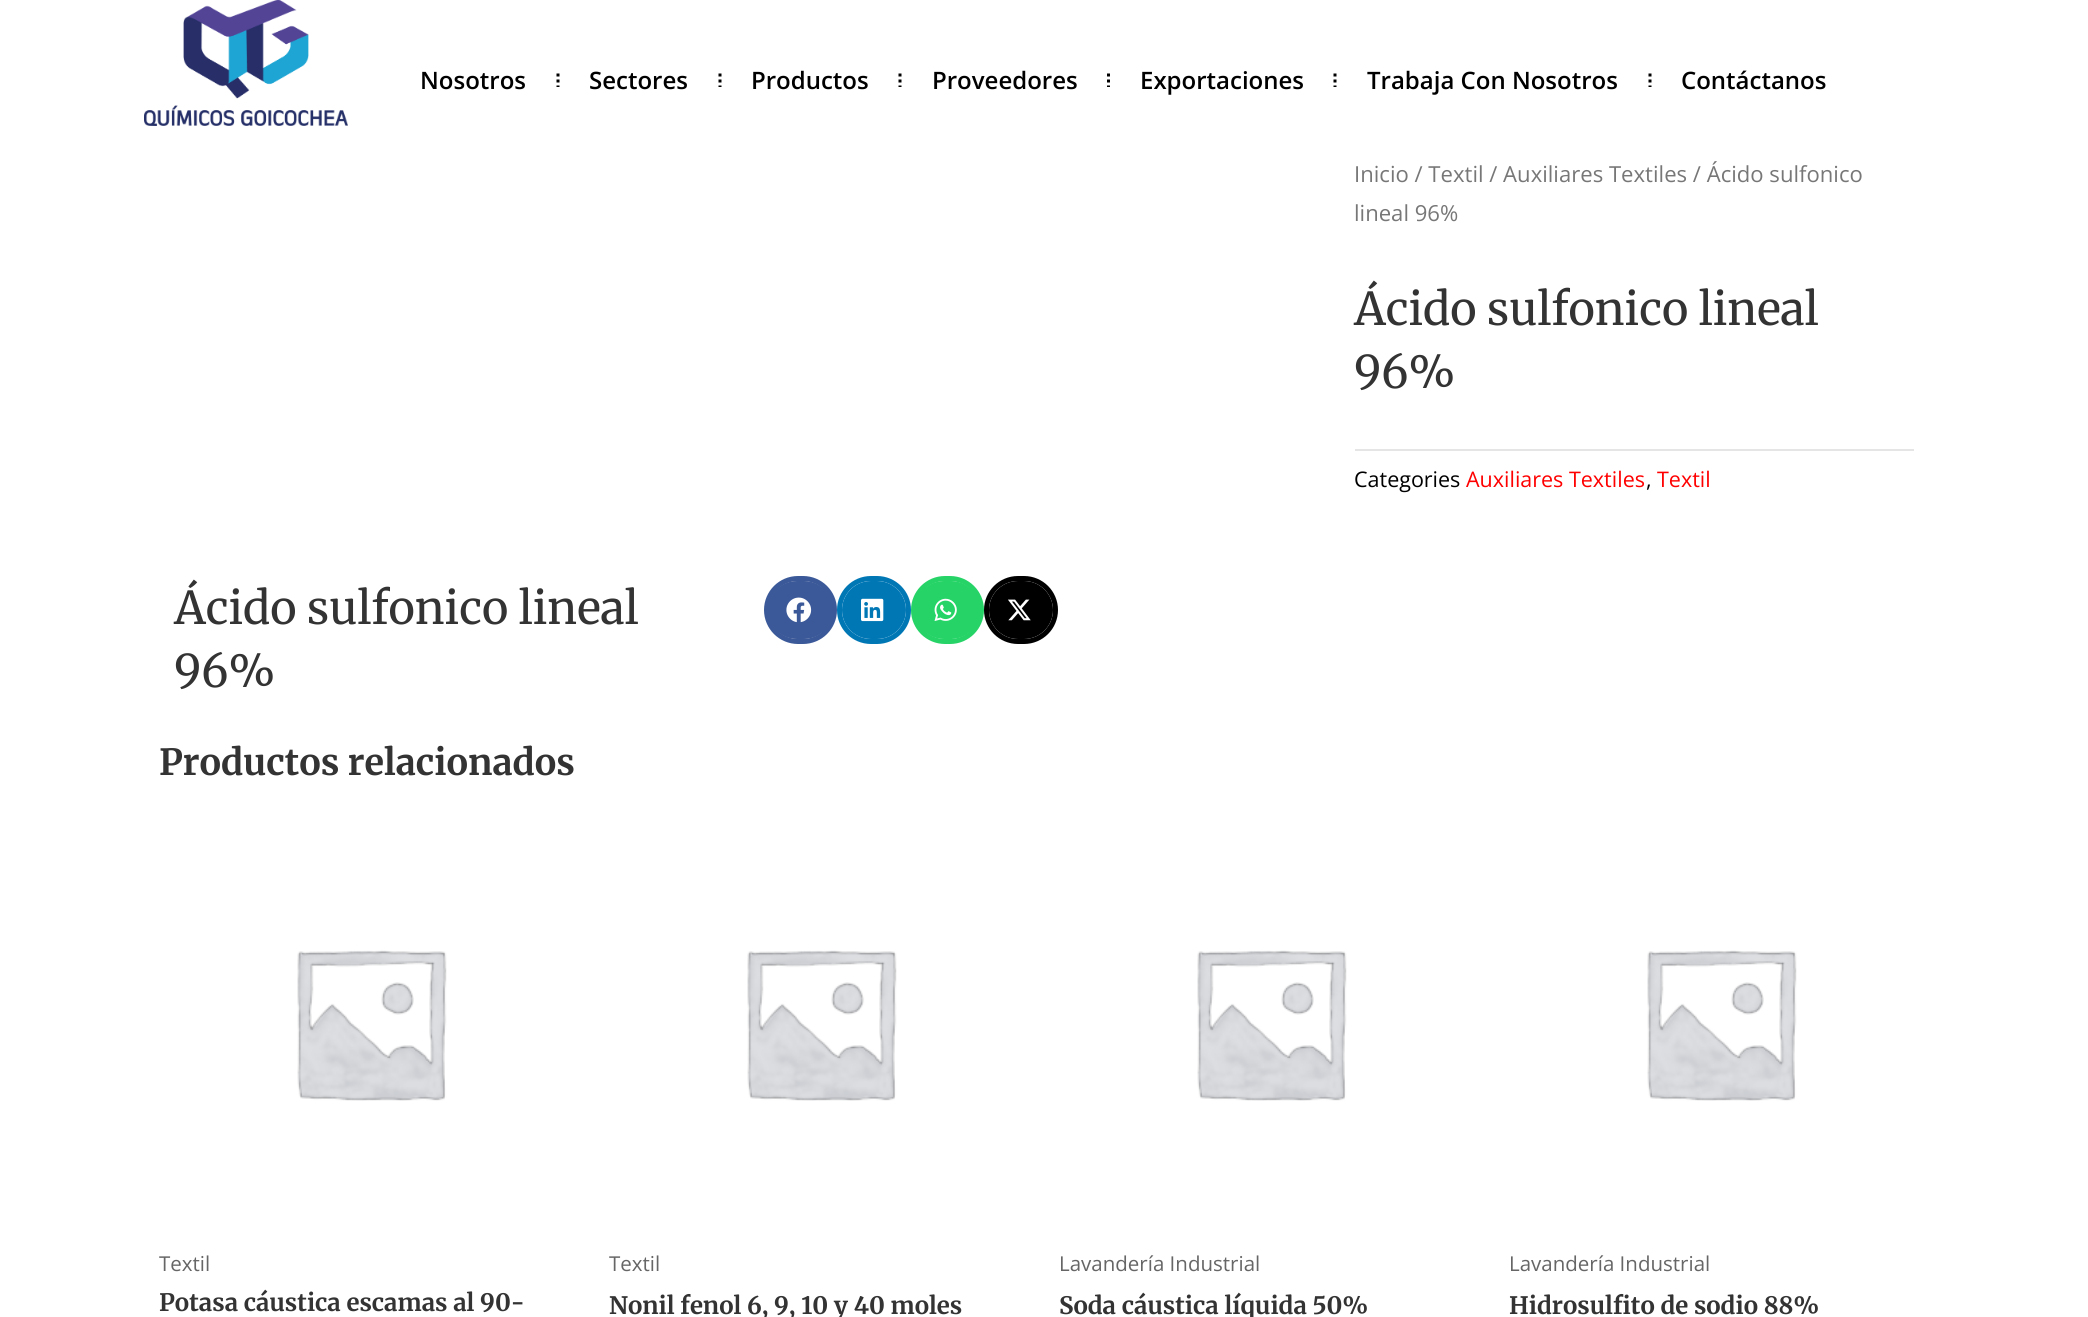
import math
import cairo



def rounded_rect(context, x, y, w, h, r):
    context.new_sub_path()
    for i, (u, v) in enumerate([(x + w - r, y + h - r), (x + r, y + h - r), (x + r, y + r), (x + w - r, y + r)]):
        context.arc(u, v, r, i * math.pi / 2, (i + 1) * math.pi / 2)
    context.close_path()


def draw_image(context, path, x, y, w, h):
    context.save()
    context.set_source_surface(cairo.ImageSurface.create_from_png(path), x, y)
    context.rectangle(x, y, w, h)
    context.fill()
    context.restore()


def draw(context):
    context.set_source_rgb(1, 1, 1)
    context.paint()
    draw_image(context, "images/1.png", 144, 0, 204, 126)
    context.new_path()
    context.move_to(558, 73.5)
    context.line_to(558, 76.5)
    context.move_to(558, 79.5)
    context.line_to(558, 82.5)
    context.move_to(558, 85.5)
    context.line_to(558, 87)
    context.set_source_rgb(0, 0, 0)
    context.set_line_width(3)
    context.stroke()
    context.new_path()
    context.move_to(720, 73.5)
    context.line_to(720, 76.5)
    context.move_to(720, 79.5)
    context.line_to(720, 82.5)
    context.move_to(720, 85.5)
    context.line_to(720, 87)
    context.stroke()
    context.new_path()
    context.move_to(900, 73.5)
    context.line_to(900, 76.5)
    context.move_to(900, 79.5)
    context.line_to(900, 82.5)
    context.move_to(900, 85.5)
    context.line_to(900, 87)
    context.stroke()
    context.new_path()
    context.move_to(1108.5, 73.5)
    context.line_to(1108.5, 76.5)
    context.move_to(1108.5, 79.5)
    context.line_to(1108.5, 82.5)
    context.move_to(1108.5, 85.5)
    context.line_to(1108.5, 87)
    context.stroke()
    context.new_path()
    context.move_to(1335, 73.5)
    context.line_to(1335, 76.5)
    context.move_to(1335, 79.5)
    context.line_to(1335, 82.5)
    context.move_to(1335, 85.5)
    context.line_to(1335, 87)
    context.stroke()
    context.new_path()
    context.move_to(1650, 73.5)
    context.line_to(1650, 76.5)
    context.move_to(1650, 79.5)
    context.line_to(1650, 82.5)
    context.move_to(1650, 85.5)
    context.line_to(1650, 87)
    context.stroke()
    context.set_source_rgb(229 / 255, 229 / 255, 229 / 255)
    context.rectangle(1355, 449, 559, 2)
    context.fill()
    rounded_rect(context, 766.5, 578.5, 68, 63, 31.5)
    context.set_source_rgb(59 / 255, 89 / 255, 152 / 255)
    context.set_line_width(5)
    context.stroke()
    rounded_rect(context, 768, 581, 65, 58, 29)
    context.fill()
    draw_image(context, "images/2.png", 786, 597, 26, 26)
    rounded_rect(context, 839.5, 578.5, 69, 63, 31.5)
    context.set_source_rgb(0, 119 / 255, 181 / 255)
    context.stroke()
    rounded_rect(context, 842, 581, 64, 58, 29)
    context.fill()
    draw_image(context, "images/3.png", 861, 598, 23, 24)
    rounded_rect(context, 913.5, 578.5, 68, 63, 31.5)
    context.set_source_rgb(37 / 255, 211 / 255, 102 / 255)
    context.stroke()
    rounded_rect(context, 915, 581, 65, 58, 29)
    context.fill()
    draw_image(context, "images/4.png", 934, 598, 23, 23)
    rounded_rect(context, 986.5, 578.5, 69, 63, 31.5)
    context.set_source_rgb(0, 0, 0)
    context.stroke()
    rounded_rect(context, 989, 581, 64, 58, 29)
    context.fill()
    draw_image(context, "images/5.png", 1008, 599, 23, 22)
    draw_image(context, "images/6.png", 297, 950, 150, 151)
    draw_image(context, "images/7.png", 747, 950, 150, 151)
    draw_image(context, "images/6.png", 1197, 950, 150, 151)
    draw_image(context, "images/6.png", 1647, 950, 150, 151)
    context.select_font_face("Open Sans SemiBold")
    context.set_font_size(24)
    context.move_to(420, 89)
    context.show_text("Nosotros")
    context.move_to(589, 89)
    context.show_text("Sectores")
    context.move_to(751, 89)
    context.show_text("Productos")
    context.move_to(932, 89)
    context.show_text("Proveedores")
    context.move_to(1140, 89)
    context.show_text("Exportaciones")
    context.move_to(1367, 89)
    context.show_text("Trabaja Con Nosotros")
    context.move_to(1681, 89)
    context.show_text("Contáctanos")
    context.select_font_face("Open Sans")
    context.set_font_size(22.1)
    context.set_source_rgb(119 / 255, 119 / 255, 119 / 255)
    context.move_to(1354, 182)
    context.show_text("Inicio / Textil / Auxiliares Textiles / Ácido sulfonico")
    context.move_to(1354, 221)
    context.show_text("lineal 96%")
    context.select_font_face("Merriweather")
    context.set_font_size(45)
    context.set_source_rgb(51 / 255, 51 / 255, 51 / 255)
    context.move_to(1354, 325)
    context.show_text("Ácido sulfonico lineal")
    context.move_to(1354, 388)
    context.show_text("96%")
    context.select_font_face("Open Sans")
    context.set_font_size(21.5)
    context.set_source_rgb(0, 0, 0)
    context.move_to(1354, 487)
    context.show_text("Categories")
    context.set_source_rgb(1, 0, 0)
    context.move_to(1466, 487)
    context.show_text("Auxiliares Textiles")
    context.set_source_rgb(0, 0, 0)
    context.move_to(1646, 487)
    context.show_text(",")
    context.set_source_rgb(1, 0, 0)
    context.move_to(1657, 487)
    context.show_text("Textil")
    context.select_font_face("Merriweather")
    context.set_font_size(45)
    context.set_source_rgb(51 / 255, 51 / 255, 51 / 255)
    context.move_to(174, 624)
    context.show_text("Ácido sulfonico lineal")
    context.move_to(174, 687)
    context.show_text("96%")
    context.select_font_face("Merriweather", cairo.FontSlant.NORMAL, cairo.FontWeight.BOLD)
    context.set_font_size(36)
    context.move_to(159, 775)
    context.show_text("Productos relacionados")
    context.select_font_face("Open Sans")
    context.set_font_size(20.5)
    context.set_source_rgb(102 / 255, 102 / 255, 102 / 255)
    context.move_to(159, 1271)
    context.show_text("Textil")
    context.select_font_face("Merriweather", cairo.FontSlant.NORMAL, cairo.FontWeight.BOLD)
    context.set_font_size(24)
    context.set_source_rgb(51 / 255, 51 / 255, 51 / 255)
    context.move_to(159, 1311)
    context.show_text("Potasa cáustica escamas al 90-")
    context.select_font_face("Open Sans")
    context.set_font_size(20.5)
    context.set_source_rgb(102 / 255, 102 / 255, 102 / 255)
    context.move_to(609, 1271)
    context.show_text("Textil")
    context.select_font_face("Merriweather", cairo.FontSlant.NORMAL, cairo.FontWeight.BOLD)
    context.set_font_size(24)
    context.set_source_rgb(51 / 255, 51 / 255, 51 / 255)
    context.move_to(609, 1314)
    context.show_text("Nonil fenol 6, 9, 10 y 40 moles")
    context.select_font_face("Open Sans")
    context.set_font_size(20.5)
    context.set_source_rgb(102 / 255, 102 / 255, 102 / 255)
    context.move_to(1059, 1271)
    context.show_text("Lavandería Industrial")
    context.select_font_face("Merriweather", cairo.FontSlant.NORMAL, cairo.FontWeight.BOLD)
    context.set_font_size(24)
    context.set_source_rgb(51 / 255, 51 / 255, 51 / 255)
    context.move_to(1059, 1314)
    context.show_text("Soda cáustica líquida 50%")
    context.select_font_face("Open Sans")
    context.set_font_size(20.5)
    context.set_source_rgb(102 / 255, 102 / 255, 102 / 255)
    context.move_to(1509, 1271)
    context.show_text("Lavandería Industrial")
    context.select_font_face("Merriweather", cairo.FontSlant.NORMAL, cairo.FontWeight.BOLD)
    context.set_font_size(24)
    context.set_source_rgb(51 / 255, 51 / 255, 51 / 255)
    context.move_to(1509, 1314)
    context.show_text("Hidrosulfito de sodio 88%")


surface = cairo.ImageSurface(cairo.Format.RGB24, 2088, 1317)
context = cairo.Context(surface)
options = cairo.FontOptions()
options.set_hint_metrics(cairo.HintMetrics.OFF)
options.set_hint_style(cairo.HintStyle.NONE)
context.set_font_options(options)
context.set_miter_limit(4)
draw(context)
surface.write_to_png("out.png")
